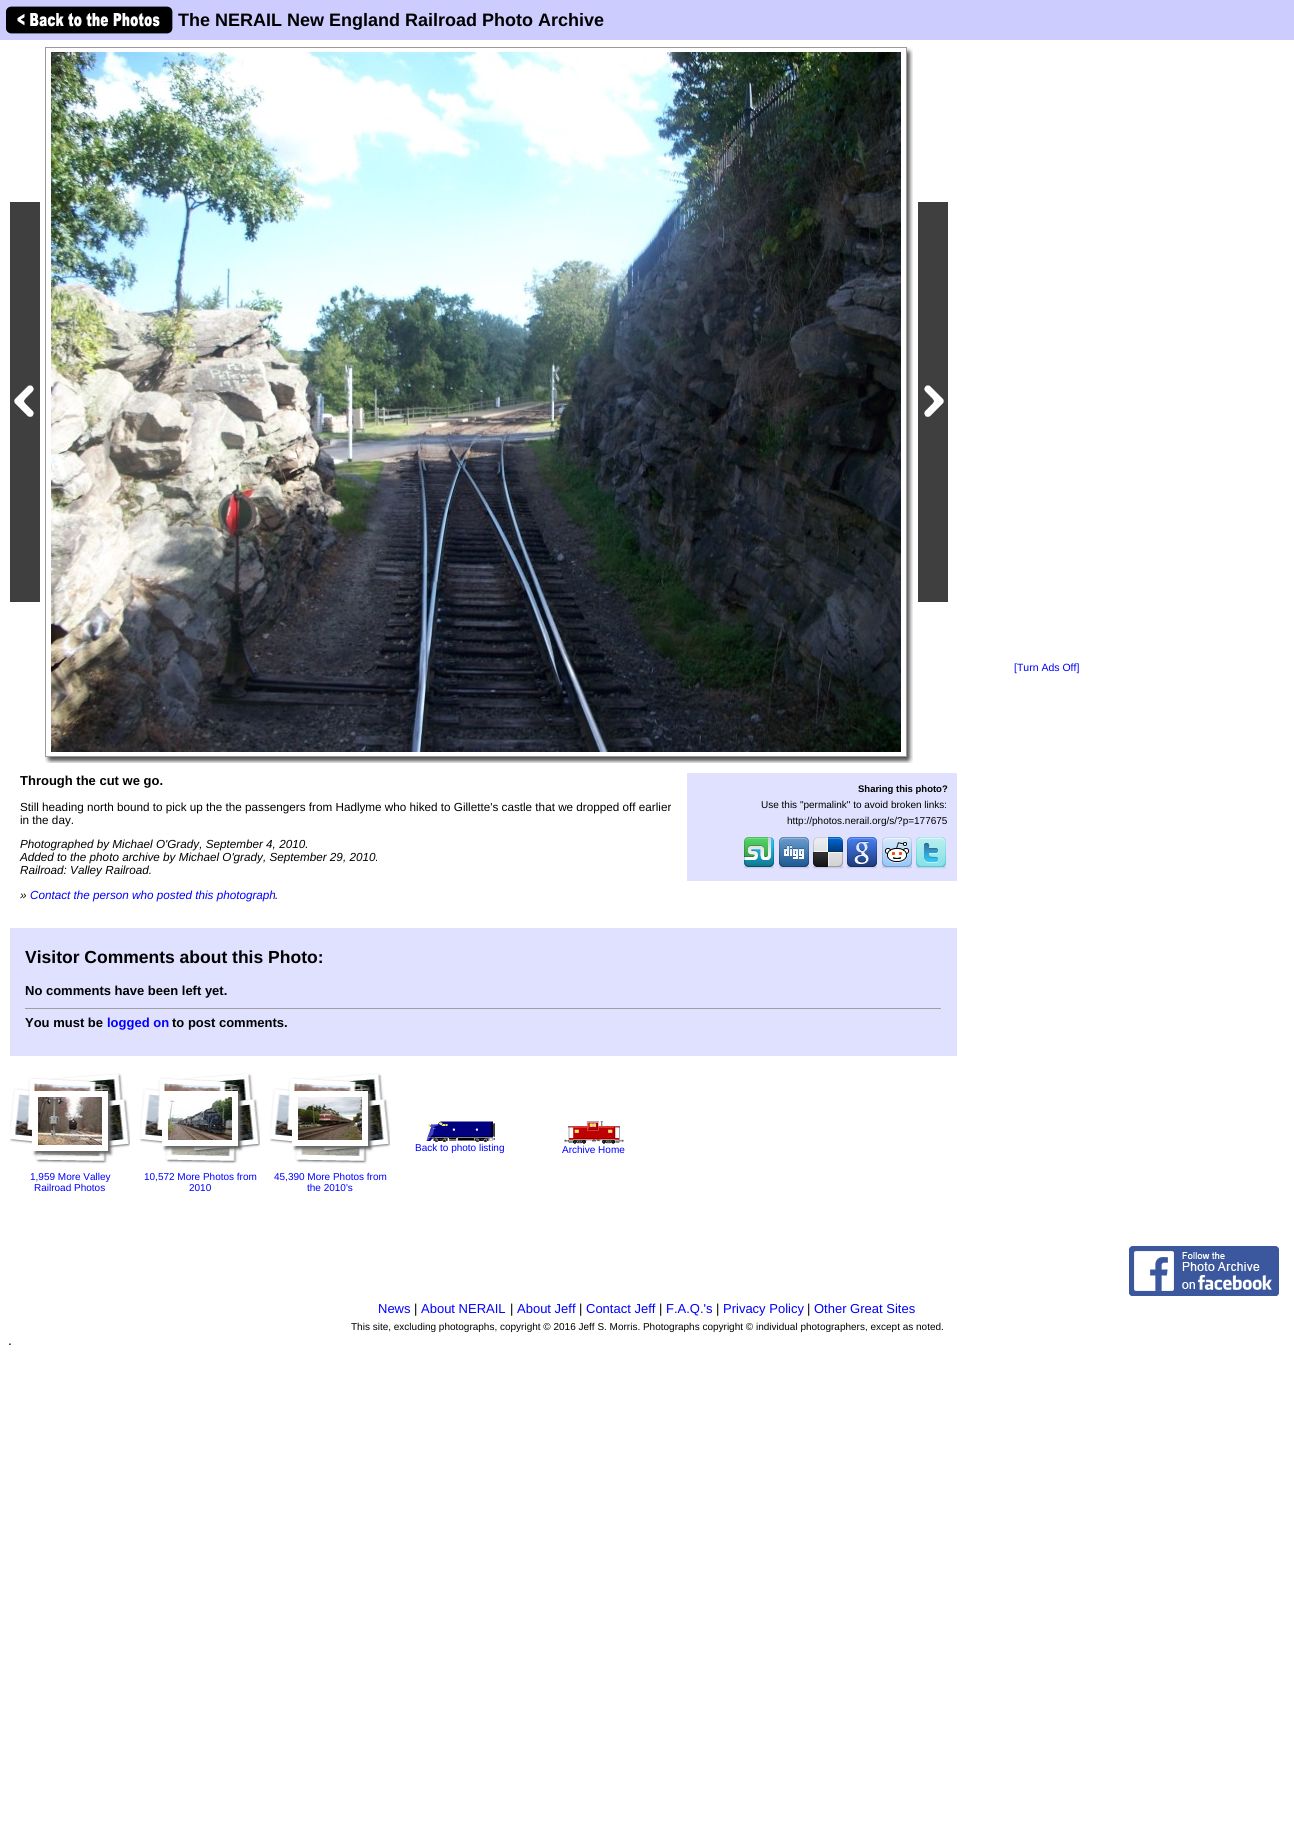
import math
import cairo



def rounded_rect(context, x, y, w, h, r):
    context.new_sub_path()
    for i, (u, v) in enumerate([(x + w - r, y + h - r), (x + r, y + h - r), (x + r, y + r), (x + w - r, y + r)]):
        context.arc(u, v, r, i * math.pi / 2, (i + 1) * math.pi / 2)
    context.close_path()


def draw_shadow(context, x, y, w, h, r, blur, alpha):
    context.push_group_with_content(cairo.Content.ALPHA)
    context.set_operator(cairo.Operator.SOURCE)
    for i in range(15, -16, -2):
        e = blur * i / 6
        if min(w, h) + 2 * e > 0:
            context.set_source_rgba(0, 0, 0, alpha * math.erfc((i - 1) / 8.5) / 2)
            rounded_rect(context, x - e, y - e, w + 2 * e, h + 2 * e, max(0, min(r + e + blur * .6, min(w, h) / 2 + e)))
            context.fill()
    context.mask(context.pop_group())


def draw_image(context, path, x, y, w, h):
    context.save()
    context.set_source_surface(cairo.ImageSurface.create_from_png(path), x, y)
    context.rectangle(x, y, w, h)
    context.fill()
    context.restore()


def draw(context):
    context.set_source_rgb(1, 1, 1)
    context.paint()
    context.set_source_rgb(204 / 255, 204 / 255, 1)
    context.rectangle(0, 0, 1294, 40)
    context.fill()
    draw_image(context, "images/1.png", 6, 6, 167, 28)
    draw_image(context, "images/2.png", 10, 202, 30, 400)
    context.rectangle(45.5, 47.5, 861, 709)
    context.set_source_rgb(154 / 255, 154 / 255, 154 / 255)
    context.set_line_width(1)
    context.stroke()
    draw_image(context, "images/3.png", 51, 52, 850, 700)
    draw_image(context, "images/4.png", 907, 47, 6, 710)
    draw_image(context, "images/5.png", 918, 202, 30, 400)
    draw_image(context, "images/6.png", 45, 757, 862, 6)
    draw_image(context, "images/7.png", 907, 757, 6, 6)
    context.set_source_rgb(224 / 255, 224 / 255, 1)
    context.rectangle(687, 773, 270, 108)
    context.fill()
    draw_image(context, "images/8.png", 744, 837, 30, 32)
    draw_image(context, "images/9.png", 779, 837, 30, 32)
    draw_image(context, "images/10.png", 812, 837, 32, 32)
    draw_image(context, "images/11.png", 847, 837, 30, 32)
    draw_image(context, "images/12.png", 882, 837, 30, 32)
    draw_image(context, "images/13.png", 916, 837, 30, 32)
    context.rectangle(10, 928, 947, 128)
    context.fill()
    context.set_source_rgb(159 / 255, 159 / 255, 159 / 255)
    context.rectangle(25, 1008, 917, 1)
    context.fill()
    context.set_source_rgb(238 / 255, 238 / 255, 238 / 255)
    context.rectangle(941, 1008, 1, 1)
    context.fill()
    draw_image(context, "images/14.png", 426, 1121, 69, 21)
    draw_image(context, "images/15.png", 564, 1121, 60, 23)
    draw_image(context, "images/16.png", 10, 1073, 120, 91)
    context.set_source_rgb(102 / 255, 102 / 255, 102 / 255)
    draw_shadow(context, 35, 1094, 76, 60, 0, 1.5, 1)
    context.set_source_rgb(1, 1, 1)
    context.rectangle(32, 1091, 76, 60)
    context.fill()
    draw_image(context, "images/17.png", 38, 1097, 64, 48)
    draw_image(context, "images/16.png", 140, 1073, 120, 91)
    context.set_source_rgb(102 / 255, 102 / 255, 102 / 255)
    draw_shadow(context, 165, 1094, 76, 55, 0, 1.5, 1)
    context.set_source_rgb(1, 1, 1)
    context.rectangle(162, 1091, 76, 55)
    context.fill()
    draw_image(context, "images/18.png", 168, 1097, 64, 43)
    draw_image(context, "images/16.png", 270, 1073, 120, 91)
    context.set_source_rgb(102 / 255, 102 / 255, 102 / 255)
    draw_shadow(context, 295, 1094, 76, 55, 0, 1.5, 1)
    context.set_source_rgb(1, 1, 1)
    context.rectangle(292, 1091, 76, 55)
    context.fill()
    draw_image(context, "images/19.png", 298, 1097, 64, 43)
    draw_image(context, "images/20.png", 1129, 1246, 150, 50)
    context.select_font_face("Liberation Sans", cairo.FontSlant.NORMAL, cairo.FontWeight.BOLD)
    context.set_font_size(18)
    context.set_source_rgb(0, 0, 0)
    context.move_to(178, 26)
    context.show_text("The NERAIL New England Railroad Photo Archive")
    context.select_font_face("Liberation Sans")
    context.set_font_size(10.5)
    context.set_source_rgb(0, 0, 1)
    context.move_to(1014, 671)
    context.show_text("[Turn Ads Off]")
    context.select_font_face("Liberation Sans", cairo.FontSlant.NORMAL, cairo.FontWeight.BOLD)
    context.set_font_size(13)
    context.set_source_rgb(0, 0, 0)
    context.move_to(20, 785)
    context.show_text("Through the cut we go.")
    context.select_font_face("Liberation Sans")
    context.set_font_size(11.7)
    context.move_to(20, 811)
    context.show_text("Still heading north bound to pick up the the passengers from Hadlyme who hiked to Gillette's castle that we dropped off earlier")
    context.move_to(20, 824)
    context.show_text("in the day.")
    context.select_font_face("Liberation Sans", cairo.FontSlant.ITALIC)
    context.move_to(20, 848)
    context.show_text("Photographed by Michael O'Grady, September 4, 2010.")
    context.move_to(20, 861)
    context.show_text("Added to the photo archive by Michael O'grady, September 29, 2010.")
    context.move_to(20, 874)
    context.show_text("Railroad: Valley Railroad.")
    context.move_to(20, 899)
    context.show_text("»")
    context.set_source_rgb(0, 0, 1)
    context.move_to(30, 899)
    context.show_text("Contact the person who posted this photograph")
    context.set_source_rgb(0, 0, 0)
    context.move_to(275, 899)
    context.show_text(".")
    context.select_font_face("Liberation Sans", cairo.FontSlant.NORMAL, cairo.FontWeight.BOLD)
    context.set_font_size(9.5)
    context.move_to(858, 792)
    context.show_text("Sharing this photo?")
    context.select_font_face("Liberation Sans")
    context.set_font_size(10)
    context.move_to(761, 808)
    context.show_text("Use this \"permalink\" to avoid broken links:")
    context.move_to(787, 824)
    context.show_text("http://photos.nerail.org/s/?p=177675")
    context.select_font_face("Liberation Sans", cairo.FontSlant.NORMAL, cairo.FontWeight.BOLD)
    context.set_font_size(17.5)
    context.move_to(25, 963)
    context.show_text("Visitor Comments about this Photo:")
    context.set_font_size(13)
    context.move_to(25, 995)
    context.show_text("No comments have been left yet.")
    context.move_to(25, 1027)
    context.show_text("You must be")
    context.set_source_rgb(0, 0, 1)
    context.move_to(107, 1027)
    context.show_text("logged on")
    context.set_source_rgb(0, 0, 0)
    context.move_to(172, 1027)
    context.show_text("to post comments.")
    context.select_font_face("Liberation Sans")
    context.set_font_size(10)
    context.set_source_rgb(0, 0, 1)
    context.move_to(415, 1151)
    context.show_text("Back to photo listing")
    context.move_to(562, 1153)
    context.show_text("Archive Home")
    context.move_to(30, 1180)
    context.show_text("1,959 More Valley")
    context.move_to(34, 1191)
    context.show_text("Railroad Photos")
    context.move_to(144, 1180)
    context.show_text("10,572 More Photos from")
    context.move_to(189, 1191)
    context.show_text("2010")
    context.move_to(274, 1180)
    context.show_text("45,390 More Photos from")
    context.move_to(307, 1191)
    context.show_text("the 2010's")
    context.set_font_size(13)
    context.move_to(378, 1313)
    context.show_text("News")
    context.set_source_rgb(0, 0, 0)
    context.move_to(414, 1313)
    context.show_text("|")
    context.set_source_rgb(0, 0, 1)
    context.move_to(421, 1313)
    context.show_text("About NERAIL")
    context.set_source_rgb(0, 0, 0)
    context.move_to(510, 1313)
    context.show_text("|")
    context.set_source_rgb(0, 0, 1)
    context.move_to(517, 1313)
    context.show_text("About Jeff")
    context.set_source_rgb(0, 0, 0)
    context.move_to(579, 1313)
    context.show_text("|")
    context.set_source_rgb(0, 0, 1)
    context.move_to(586, 1313)
    context.show_text("Contact Jeff")
    context.set_source_rgb(0, 0, 0)
    context.move_to(659, 1313)
    context.show_text("|")
    context.set_source_rgb(0, 0, 1)
    context.move_to(666, 1313)
    context.show_text("F.A.Q.'s")
    context.set_source_rgb(0, 0, 0)
    context.move_to(716, 1313)
    context.show_text("|")
    context.set_source_rgb(0, 0, 1)
    context.move_to(723, 1313)
    context.show_text("Privacy Policy")
    context.set_source_rgb(0, 0, 0)
    context.move_to(807, 1313)
    context.show_text("|")
    context.set_source_rgb(0, 0, 1)
    context.move_to(814, 1313)
    context.show_text("Other Great Sites")
    context.set_font_size(10)
    context.set_source_rgb(0, 0, 0)
    context.move_to(351, 1330)
    context.show_text("This site, excluding photographs, copyright © 2016 Jeff S. Morris. Photographs copyright © individual photographers, except as noted.")
    context.set_font_size(14)
    context.move_to(8, 1345)
    context.show_text(".")


surface = cairo.ImageSurface(cairo.Format.RGB24, 1294, 1839)
context = cairo.Context(surface)
options = cairo.FontOptions()
options.set_hint_metrics(cairo.HintMetrics.OFF)
options.set_hint_style(cairo.HintStyle.NONE)
context.set_font_options(options)
context.set_miter_limit(4)
draw(context)
surface.write_to_png("out.png")
